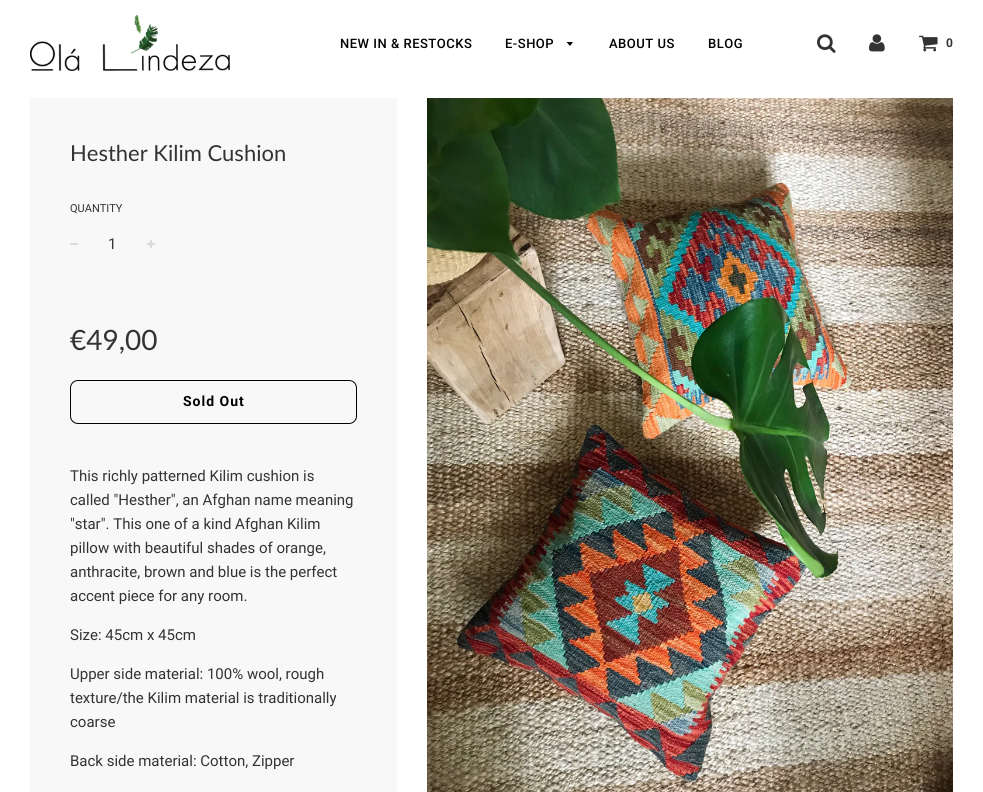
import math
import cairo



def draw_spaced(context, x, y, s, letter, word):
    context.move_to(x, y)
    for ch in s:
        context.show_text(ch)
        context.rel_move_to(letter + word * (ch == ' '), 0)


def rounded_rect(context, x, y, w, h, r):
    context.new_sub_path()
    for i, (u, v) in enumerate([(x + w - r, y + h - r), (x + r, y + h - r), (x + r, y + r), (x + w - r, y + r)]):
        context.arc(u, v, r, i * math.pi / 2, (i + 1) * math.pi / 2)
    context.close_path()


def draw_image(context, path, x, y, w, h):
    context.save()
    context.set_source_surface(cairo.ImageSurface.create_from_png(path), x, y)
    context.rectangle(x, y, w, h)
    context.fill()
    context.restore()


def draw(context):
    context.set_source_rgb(1, 1, 1)
    context.paint()
    draw_image(context, "images/1.png", 30, 15, 200, 56)
    context.set_source_rgb(0, 0, 0)
    context.new_path()
    context.move_to(566.5, 42)
    context.line_to(570, 46)
    context.line_to(573, 42)
    context.close_path()
    context.fill()
    draw_image(context, "images/2.png", 817, 34, 19, 19)
    draw_image(context, "images/3.png", 869, 34, 16, 18)
    draw_image(context, "images/4.png", 919, 35, 19, 17)
    context.set_source_rgb(248 / 255, 248 / 255, 248 / 255)
    context.rectangle(30, 98, 367, 694)
    context.fill()
    draw_image(context, "images/5.png", 70, 243, 8, 2)
    draw_image(context, "images/6.png", 147, 240, 8, 8)
    rounded_rect(context, 70.5, 380.5, 286, 43, 7.5)
    context.set_source_rgb(0, 0, 0)
    context.set_line_width(1)
    context.stroke()
    draw_image(context, "images/7.png", 427, 98, 526, 694)
    context.select_font_face("Roboto Medium")
    context.set_font_size(13)
    draw_spaced(context, 340, 48, "NEW IN & RESTOCKS", 0.5, 0)
    draw_spaced(context, 505, 48, "E-SHOP", 0.5, 0)
    draw_spaced(context, 609, 48, "ABOUT US", 0.5, 0)
    draw_spaced(context, 708, 48, "BLOG", 0.5, 0)
    context.select_font_face("Roboto", cairo.FontSlant.NORMAL, cairo.FontWeight.BOLD)
    context.set_font_size(12)
    context.set_source_rgb(51 / 255, 51 / 255, 51 / 255)
    context.move_to(946, 47)
    context.show_text("0")
    context.select_font_face("Lato")
    context.set_font_size(22)
    context.move_to(70, 161)
    context.show_text("Hesther Kilim Cushion")
    context.select_font_face("Roboto")
    context.set_font_size(11)
    context.move_to(70, 212)
    context.show_text("QUANTITY")
    context.set_font_size(15)
    context.move_to(108, 249)
    context.show_text("1")
    context.select_font_face("Lato")
    context.set_font_size(28)
    context.move_to(70, 350)
    context.show_text("€49,00")
    context.select_font_face("Roboto", cairo.FontSlant.NORMAL, cairo.FontWeight.BOLD)
    context.set_font_size(14)
    context.set_source_rgb(0, 0, 0)
    draw_spaced(context, 183, 406, "Sold Out", 1, 0)
    context.select_font_face("Roboto")
    context.set_font_size(15)
    context.set_source_rgb(51 / 255, 51 / 255, 51 / 255)
    context.move_to(70, 481)
    context.show_text("This richly patterned Kilim cushion is")
    context.move_to(70, 505)
    context.show_text("called \"Hesther\", an Afghan name meaning")
    context.move_to(70, 529)
    context.show_text("\"star\". This one of a kind Afghan Kilim")
    context.move_to(70, 553)
    context.show_text("pillow with beautiful shades of orange,")
    context.move_to(70, 577)
    context.show_text("anthracite, brown and blue is the perfect")
    context.move_to(70, 601)
    context.show_text("accent piece for any room.")
    context.move_to(70, 640)
    context.show_text("Size: 45cm x 45cm")
    context.move_to(70, 679)
    context.show_text("Upper side material: 100% wool, rough")
    context.move_to(70, 703)
    context.show_text("texture/the Kilim material is traditionally")
    context.move_to(70, 727)
    context.show_text("coarse")
    context.move_to(70, 766)
    context.show_text("Back side material: Cotton, Zipper")


surface = cairo.ImageSurface(cairo.Format.RGB24, 983, 792)
context = cairo.Context(surface)
options = cairo.FontOptions()
options.set_hint_metrics(cairo.HintMetrics.OFF)
options.set_hint_style(cairo.HintStyle.NONE)
context.set_font_options(options)
context.set_miter_limit(4)
draw(context)
surface.write_to_png("out.png")
